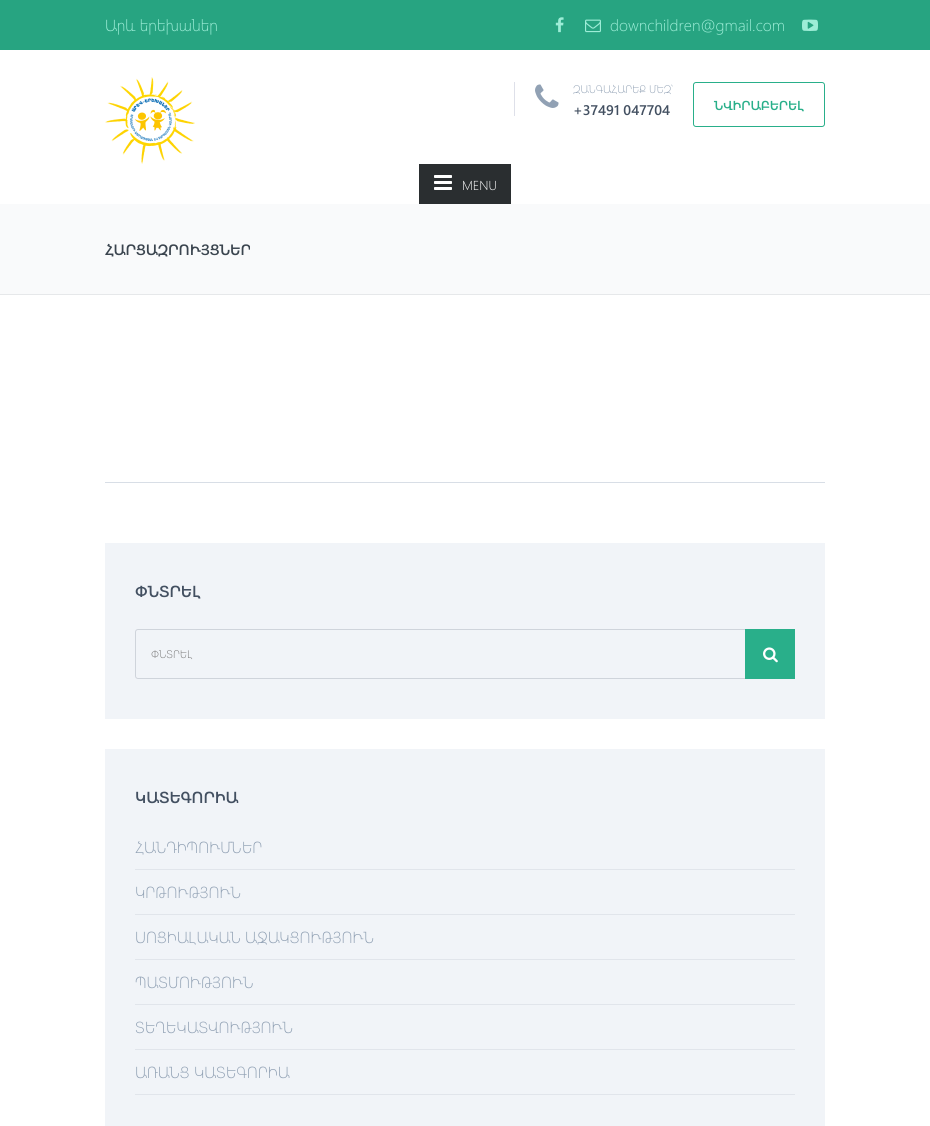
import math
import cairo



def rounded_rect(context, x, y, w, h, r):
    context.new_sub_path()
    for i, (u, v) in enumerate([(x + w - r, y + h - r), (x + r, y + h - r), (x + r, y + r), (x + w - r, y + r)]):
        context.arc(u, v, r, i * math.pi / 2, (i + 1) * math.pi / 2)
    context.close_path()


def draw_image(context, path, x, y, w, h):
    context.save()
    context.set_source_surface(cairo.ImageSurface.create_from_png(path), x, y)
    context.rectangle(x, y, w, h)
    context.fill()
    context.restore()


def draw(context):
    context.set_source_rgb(1, 1, 1)
    context.paint()
    context.set_source_rgb(39 / 255, 164 / 255, 129 / 255)
    context.rectangle(0, 0, 930, 50)
    context.fill()
    draw_image(context, "images/1.png", 555, 17, 9, 16)
    draw_image(context, "images/2.png", 585, 19, 16, 14)
    draw_image(context, "images/3.png", 802, 19, 16, 12)
    draw_image(context, "images/4.png", 105, 77, 90, 87)
    context.set_source_rgb(222 / 255, 224 / 255, 233 / 255)
    context.rectangle(514, 82, 1, 34)
    context.fill()
    draw_image(context, "images/5.png", 535, 84, 24, 24)
    rounded_rect(context, 693.5, 82.5, 131, 44, 2.5)
    context.set_source_rgb(41 / 255, 175 / 255, 138 / 255)
    context.set_line_width(1)
    context.stroke()
    context.set_source_rgb(42 / 255, 46 / 255, 48 / 255)
    context.rectangle(419, 164, 92, 40)
    context.fill()
    draw_image(context, "images/6.png", 434, 175, 18, 15)
    context.set_source_rgb(249 / 255, 250 / 255, 251 / 255)
    context.rectangle(0, 204, 930, 90)
    context.fill()
    context.set_source_rgb(230 / 255, 232 / 255, 234 / 255)
    context.rectangle(0, 294, 930, 1)
    context.fill()
    context.set_source_rgb(216 / 255, 222 / 255, 230 / 255)
    context.rectangle(105, 482, 720, 1)
    context.fill()
    context.set_source_rgb(241 / 255, 244 / 255, 248 / 255)
    context.rectangle(105, 543, 720, 176)
    context.fill()
    rounded_rect(context, 135.5, 629.5, 659, 49, 2.5)
    context.set_source_rgb(207 / 255, 212 / 255, 219 / 255)
    context.stroke()
    context.set_source_rgb(41 / 255, 175 / 255, 138 / 255)
    context.rectangle(745, 629, 50, 50)
    context.fill()
    draw_image(context, "images/7.png", 763, 647, 15, 16)
    context.set_source_rgb(241 / 255, 244 / 255, 248 / 255)
    context.rectangle(105, 749, 720, 377)
    context.fill()
    context.set_source_rgb(225 / 255, 229 / 255, 235 / 255)
    context.rectangle(135, 869, 660, 1)
    context.fill()
    context.rectangle(135, 914, 660, 1)
    context.fill()
    context.rectangle(135, 959, 660, 1)
    context.fill()
    context.rectangle(135, 1004, 660, 1)
    context.fill()
    context.rectangle(135, 1049, 660, 1)
    context.fill()
    context.rectangle(135, 1094, 660, 1)
    context.fill()
    context.select_font_face("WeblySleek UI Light")
    context.set_font_size(16)
    context.set_source_rgb(157 / 255, 237 / 255, 215 / 255)
    context.move_to(105, 31)
    context.show_text("Արև երեխաներ")
    context.move_to(610, 31)
    context.show_text("downchildren@gmail.com")
    context.set_font_size(11)
    context.set_source_rgb(145 / 255, 161 / 255, 180 / 255)
    context.move_to(573, 93)
    context.show_text("ԶԱՆԳԱՀԱՐԵՔ ՄԵԶ՝")
    context.select_font_face("WeblySleek UI SemiBold")
    context.set_font_size(14)
    context.set_source_rgb(67 / 255, 80 / 255, 97 / 255)
    context.move_to(573, 115)
    context.show_text("+37491 047704")
    context.set_font_size(13)
    context.set_source_rgb(41 / 255, 175 / 255, 138 / 255)
    context.move_to(714, 110)
    context.show_text("ՆՎԻՐԱԲԵՐԵԼ")
    context.select_font_face("WeblySleek UI Light")
    context.set_source_rgb(1, 1, 1)
    context.move_to(462, 190)
    context.show_text("MENU")
    context.select_font_face("WeblySleek UI SemiBold")
    context.set_font_size(15)
    context.set_source_rgb(59 / 255, 69 / 255, 79 / 255)
    context.move_to(105, 255)
    context.show_text("ՀԱՐՑԱԶՐՈՒՅՑՆԵՐ")
    context.set_font_size(16)
    context.set_source_rgb(67 / 255, 80 / 255, 97 / 255)
    context.move_to(135, 597)
    context.show_text("ՓՆՏՐԵԼ")
    context.select_font_face("WeblySleek UI Light")
    context.set_font_size(11)
    context.set_source_rgb(117 / 255, 117 / 255, 117 / 255)
    context.move_to(151, 658)
    context.show_text("ՓՆՏՐԵԼ")
    context.select_font_face("WeblySleek UI SemiBold")
    context.set_font_size(16)
    context.set_source_rgb(67 / 255, 80 / 255, 97 / 255)
    context.move_to(135, 803)
    context.show_text("ԿԱՏԵԳՈՐԻԱ")
    context.select_font_face("WeblySleek UI Light")
    context.set_source_rgb(145 / 255, 161 / 255, 180 / 255)
    context.move_to(135, 853)
    context.show_text("ՀԱՆԴԻՊՈՒՄՆԵՐ")
    context.move_to(135, 898)
    context.show_text("ԿՐԹՈՒԹՅՈՒՆ")
    context.move_to(135, 943)
    context.show_text("ՍՈՑԻԱԼԱԿԱՆ ԱՋԱԿՑՈՒԹՅՈՒՆ")
    context.move_to(135, 988)
    context.show_text("ՊԱՏՄՈՒԹՅՈՒՆ")
    context.move_to(135, 1033)
    context.show_text("ՏԵՂԵԿԱՏՎՈՒԹՅՈՒՆ")
    context.move_to(135, 1078)
    context.show_text("ԱՌԱՆՑ ԿԱՏԵԳՈՐԻԱ")


surface = cairo.ImageSurface(cairo.Format.RGB24, 930, 1126)
context = cairo.Context(surface)
options = cairo.FontOptions()
options.set_hint_metrics(cairo.HintMetrics.OFF)
options.set_hint_style(cairo.HintStyle.NONE)
context.set_font_options(options)
context.set_miter_limit(4)
draw(context)
surface.write_to_png("out.png")
